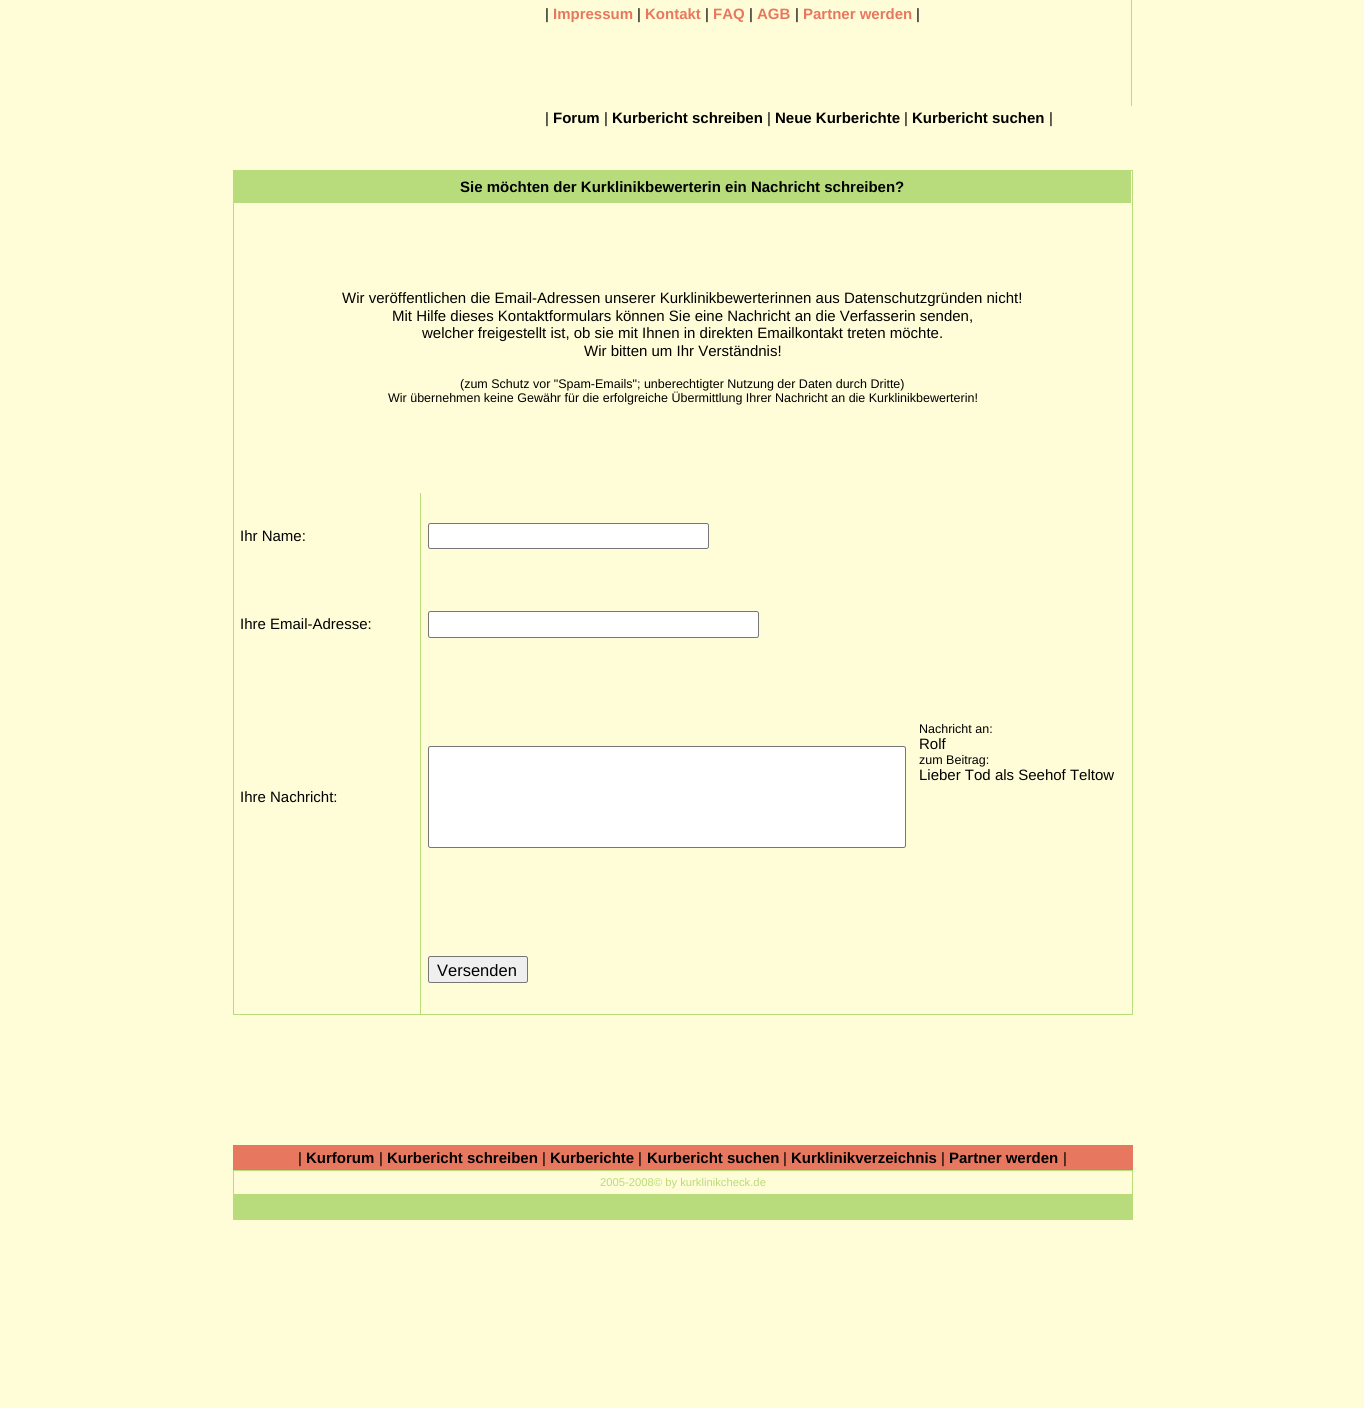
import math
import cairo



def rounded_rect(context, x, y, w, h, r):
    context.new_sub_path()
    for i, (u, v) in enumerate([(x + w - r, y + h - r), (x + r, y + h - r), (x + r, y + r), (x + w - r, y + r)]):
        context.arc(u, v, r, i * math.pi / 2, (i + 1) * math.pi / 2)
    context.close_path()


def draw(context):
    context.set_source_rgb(1, 253 / 255, 215 / 255)
    context.paint()
    context.set_source_rgb(184 / 255, 219 / 255, 124 / 255)
    context.rectangle(1131, 0, 1, 106)
    context.fill()
    context.rectangle(233.5, 170.5, 899, 844)
    context.set_line_width(1)
    context.stroke()
    context.rectangle(234, 171, 897, 32)
    context.fill()
    context.rectangle(420, 493, 1, 521)
    context.fill()
    context.set_source_rgb(1, 1, 1)
    rounded_rect(context, 428.5, 523.5, 280, 25, 2)
    context.fill_preserve()
    context.set_source_rgb(118 / 255, 118 / 255, 118 / 255)
    context.stroke()
    context.set_source_rgb(1, 1, 1)
    rounded_rect(context, 428.5, 611.5, 330, 26, 2)
    context.fill_preserve()
    context.set_source_rgb(118 / 255, 118 / 255, 118 / 255)
    context.stroke()
    context.set_source_rgb(1, 1, 1)
    rounded_rect(context, 428.5, 746.5, 477, 101, 2)
    context.fill_preserve()
    context.set_source_rgb(118 / 255, 118 / 255, 118 / 255)
    context.stroke()
    context.set_source_rgb(239 / 255, 239 / 255, 239 / 255)
    rounded_rect(context, 428.5, 956.5, 99, 26, 2)
    context.fill_preserve()
    context.set_source_rgb(118 / 255, 118 / 255, 118 / 255)
    context.stroke()
    context.set_source_rgb(231 / 255, 120 / 255, 95 / 255)
    context.rectangle(233, 1145, 900, 25)
    context.fill()
    context.rectangle(233.5, 1170.5, 899, 24)
    context.set_source_rgb(184 / 255, 219 / 255, 124 / 255)
    context.stroke()
    context.rectangle(233, 1195, 900, 25)
    context.fill()
    context.select_font_face("Liberation Sans")
    context.set_font_size(15)
    context.set_source_rgb(0, 0, 0)
    context.move_to(545, 19)
    context.show_text("|")
    context.select_font_face("Liberation Sans", cairo.FontSlant.NORMAL, cairo.FontWeight.BOLD)
    context.set_source_rgb(231 / 255, 120 / 255, 95 / 255)
    context.move_to(553, 19)
    context.show_text("Impressum")
    context.select_font_face("Liberation Sans")
    context.set_source_rgb(0, 0, 0)
    context.move_to(637, 19)
    context.show_text("|")
    context.select_font_face("Liberation Sans", cairo.FontSlant.NORMAL, cairo.FontWeight.BOLD)
    context.set_source_rgb(231 / 255, 120 / 255, 95 / 255)
    context.move_to(645, 19)
    context.show_text("Kontakt")
    context.select_font_face("Liberation Sans")
    context.set_source_rgb(0, 0, 0)
    context.move_to(705, 19)
    context.show_text("|")
    context.select_font_face("Liberation Sans", cairo.FontSlant.NORMAL, cairo.FontWeight.BOLD)
    context.set_source_rgb(231 / 255, 120 / 255, 95 / 255)
    context.move_to(713, 19)
    context.show_text("FAQ")
    context.select_font_face("Liberation Sans")
    context.set_source_rgb(0, 0, 0)
    context.move_to(749, 19)
    context.show_text("|")
    context.select_font_face("Liberation Sans", cairo.FontSlant.NORMAL, cairo.FontWeight.BOLD)
    context.set_source_rgb(231 / 255, 120 / 255, 95 / 255)
    context.move_to(757, 19)
    context.show_text("AGB")
    context.select_font_face("Liberation Sans")
    context.set_source_rgb(0, 0, 0)
    context.move_to(795, 19)
    context.show_text("|")
    context.select_font_face("Liberation Sans", cairo.FontSlant.NORMAL, cairo.FontWeight.BOLD)
    context.set_source_rgb(231 / 255, 120 / 255, 95 / 255)
    context.move_to(803, 19)
    context.show_text("Partner werden")
    context.select_font_face("Liberation Sans")
    context.set_source_rgb(0, 0, 0)
    context.move_to(916, 19)
    context.show_text("|")
    context.move_to(545, 123)
    context.show_text("|")
    context.select_font_face("Liberation Sans", cairo.FontSlant.NORMAL, cairo.FontWeight.BOLD)
    context.move_to(553, 123)
    context.show_text("Forum")
    context.select_font_face("Liberation Sans")
    context.move_to(604, 123)
    context.show_text("|")
    context.select_font_face("Liberation Sans", cairo.FontSlant.NORMAL, cairo.FontWeight.BOLD)
    context.move_to(612, 123)
    context.show_text("Kurbericht schreiben")
    context.select_font_face("Liberation Sans")
    context.move_to(767, 123)
    context.show_text("|")
    context.select_font_face("Liberation Sans", cairo.FontSlant.NORMAL, cairo.FontWeight.BOLD)
    context.move_to(775, 123)
    context.show_text("Neue Kurberichte")
    context.select_font_face("Liberation Sans")
    context.move_to(904, 123)
    context.show_text("|")
    context.select_font_face("Liberation Sans", cairo.FontSlant.NORMAL, cairo.FontWeight.BOLD)
    context.move_to(912, 123)
    context.show_text("Kurbericht suchen")
    context.select_font_face("Liberation Sans")
    context.move_to(1049, 123)
    context.show_text("|")
    context.select_font_face("Liberation Sans", cairo.FontSlant.NORMAL, cairo.FontWeight.BOLD)
    context.move_to(460, 192)
    context.show_text("Sie möchten der Kurklinikbewerterin ein Nachricht schreiben?")
    context.select_font_face("Liberation Sans")
    context.move_to(342, 303)
    context.show_text("Wir veröffentlichen die Email-Adressen unserer Kurklinikbewerterinnen aus Datenschutzgründen nicht!")
    context.move_to(392, 321)
    context.show_text("Mit Hilfe dieses Kontaktformulars können Sie eine Nachricht an die Verfasserin senden,")
    context.move_to(422, 338)
    context.show_text("welcher freigestellt ist, ob sie mit Ihnen in direkten Emailkontakt treten möchte.")
    context.move_to(584, 356)
    context.show_text("Wir bitten um Ihr Verständnis!")
    context.set_font_size(12.5)
    context.move_to(460, 388)
    context.show_text("(zum Schutz vor \"Spam-Emails\"; unberechtigter Nutzung der Daten durch Dritte)")
    context.move_to(388, 402)
    context.show_text("Wir übernehmen keine Gewähr für die erfolgreiche Übermittlung Ihrer Nachricht an die Kurklinikbewerterin!")
    context.set_font_size(15)
    context.move_to(240, 541)
    context.show_text("Ihr Name:")
    context.set_font_size(12.5)
    context.move_to(919, 733)
    context.show_text("Nachricht an:")
    context.set_font_size(15)
    context.move_to(919, 749)
    context.show_text("Rolf")
    context.set_font_size(12.5)
    context.move_to(919, 764)
    context.show_text("zum Beitrag:")
    context.set_font_size(15)
    context.move_to(919, 780)
    context.show_text("Lieber Tod als Seehof Teltow")
    context.move_to(240, 629)
    context.show_text("Ihre Email-Adresse:")
    context.move_to(240, 802)
    context.show_text("Ihre Nachricht:")
    context.set_font_size(16.5)
    context.move_to(437, 976)
    context.show_text("Versenden")
    context.set_font_size(15)
    context.move_to(298, 1163)
    context.show_text("|")
    context.select_font_face("Liberation Sans", cairo.FontSlant.NORMAL, cairo.FontWeight.BOLD)
    context.move_to(306, 1163)
    context.show_text("Kurforum")
    context.select_font_face("Liberation Sans")
    context.move_to(379, 1163)
    context.show_text("|")
    context.select_font_face("Liberation Sans", cairo.FontSlant.NORMAL, cairo.FontWeight.BOLD)
    context.move_to(387, 1163)
    context.show_text("Kurbericht schreiben")
    context.select_font_face("Liberation Sans")
    context.move_to(542, 1163)
    context.show_text("|")
    context.select_font_face("Liberation Sans", cairo.FontSlant.NORMAL, cairo.FontWeight.BOLD)
    context.move_to(550, 1163)
    context.show_text("Kurberichte")
    context.select_font_face("Liberation Sans")
    context.move_to(638, 1163)
    context.show_text("|")
    context.select_font_face("Liberation Sans", cairo.FontSlant.NORMAL, cairo.FontWeight.BOLD)
    context.move_to(647, 1163)
    context.show_text("Kurbericht suchen")
    context.select_font_face("Liberation Sans")
    context.move_to(783, 1163)
    context.show_text("|")
    context.select_font_face("Liberation Sans", cairo.FontSlant.NORMAL, cairo.FontWeight.BOLD)
    context.move_to(791, 1163)
    context.show_text("Kurklinikverzeichnis")
    context.select_font_face("Liberation Sans")
    context.move_to(941, 1163)
    context.show_text("|")
    context.select_font_face("Liberation Sans", cairo.FontSlant.NORMAL, cairo.FontWeight.BOLD)
    context.move_to(949, 1163)
    context.show_text("Partner werden")
    context.select_font_face("Liberation Sans")
    context.move_to(1063, 1163)
    context.show_text("|")
    context.set_font_size(11.25)
    context.set_source_rgb(184 / 255, 219 / 255, 124 / 255)
    context.move_to(600, 1186)
    context.show_text("2005-2008© by kurklinikcheck.de")


surface = cairo.ImageSurface(cairo.Format.RGB24, 1364, 1408)
context = cairo.Context(surface)
options = cairo.FontOptions()
options.set_hint_metrics(cairo.HintMetrics.OFF)
options.set_hint_style(cairo.HintStyle.NONE)
context.set_font_options(options)
context.set_miter_limit(4)
draw(context)
surface.write_to_png("out.png")
